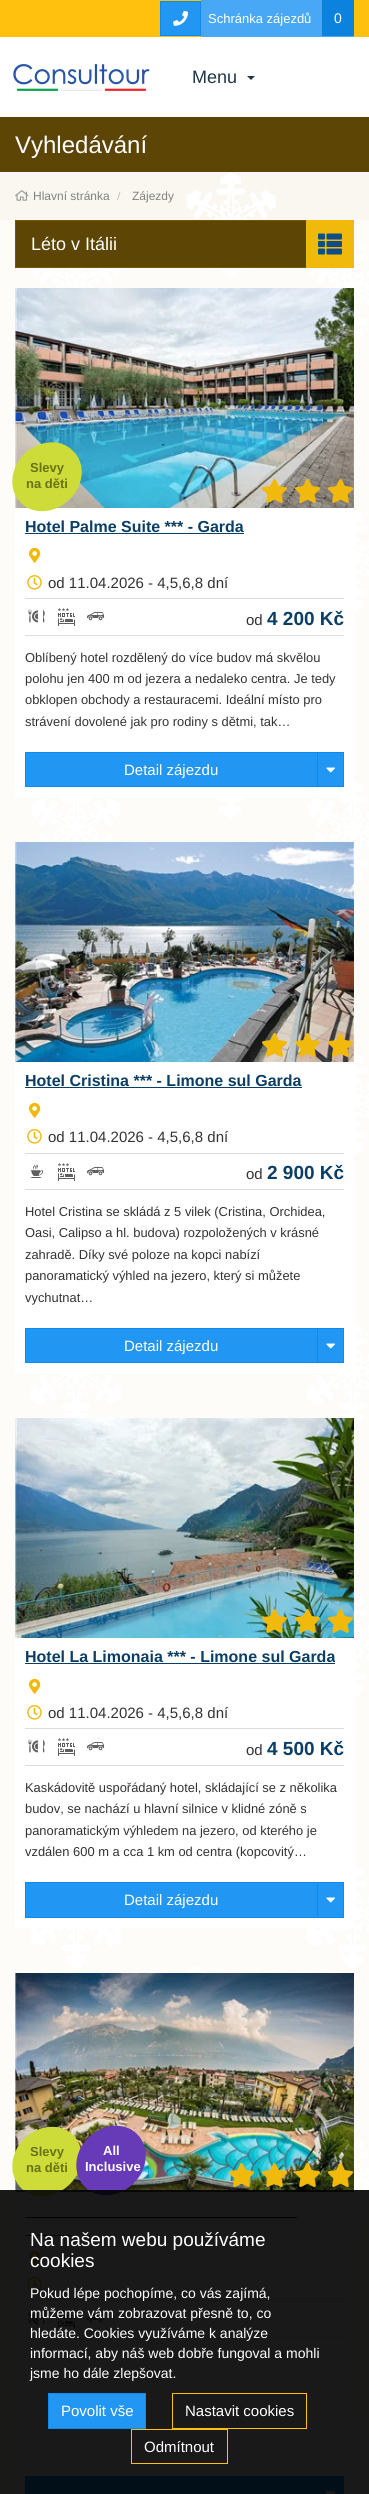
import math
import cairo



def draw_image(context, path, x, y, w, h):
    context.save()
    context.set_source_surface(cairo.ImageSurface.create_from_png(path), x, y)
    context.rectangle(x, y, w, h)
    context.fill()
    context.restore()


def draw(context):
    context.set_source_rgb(249 / 255, 247 / 255, 240 / 255)
    context.paint()
    context.set_source_rgb(253 / 255, 252 / 255, 249 / 255)
    context.rectangle(0, 220, 369, 2274)
    context.fill()
    context.set_source_rgb(1, 1, 1)
    context.rectangle(0, 37, 369, 80)
    context.fill()
    context.set_source_rgb(1, 193 / 255, 13 / 255)
    context.rectangle(0, 0, 369, 37)
    context.fill()
    context.set_source_rgb(33 / 255, 150 / 255, 243 / 255)
    context.rectangle(160.5, 1.5, 40, 34)
    context.fill_preserve()
    context.set_source_rgb(13 / 255, 138 / 255, 238 / 255)
    context.set_line_width(1)
    context.stroke()
    draw_image(context, "images/1.png", 173, 10, 15, 16)
    context.set_source_rgb(72 / 255, 168 / 255, 245 / 255)
    context.rectangle(201, 0, 153, 37)
    context.fill()
    context.set_source_rgb(12 / 255, 130 / 255, 223 / 255)
    context.rectangle(322, 0, 32, 36)
    context.fill()
    draw_image(context, "images/2.png", 13, 63, 137, 28)
    context.set_source_rgb(31 / 255, 54 / 255, 71 / 255)
    context.new_path()
    context.move_to(247, 76)
    context.line_to(255, 76)
    context.line_to(251, 80)
    context.close_path()
    context.fill()
    context.set_source_rgb(92 / 255, 69 / 255, 5 / 255)
    context.rectangle(0, 117, 369, 55)
    context.fill()
    draw_image(context, "images/3.png", 30, 172, 339, 2322)
    draw_image(context, "images/4.png", 15, 190, 14, 11)
    context.rectangle(16, 221, 290, 46)
    context.fill()
    context.rectangle(15.5, 220.5, 338, 47)
    context.set_source_rgb(116 / 255, 88 / 255, 6 / 255)
    context.stroke()
    context.set_source_rgb(242 / 255, 185 / 255, 13 / 255)
    context.rectangle(306, 220, 48, 48)
    context.fill()
    draw_image(context, "images/5.png", 318, 233, 24, 22)
    context.set_source_rgb(1, 1, 1)
    context.rectangle(15, 288, 339, 509)
    context.fill()
    draw_image(context, "images/6.png", 15, 288, 339, 220)
    context.set_source_rgb(205 / 255, 220 / 255, 57 / 255)
    context.new_path()
    context.move_to(73, 451)
    context.curve_to(86, 463, 84, 485, 70, 499)
    context.curve_to(55, 514, 33, 515, 21, 503)
    context.curve_to(8, 490, 10, 469, 24, 454)
    context.curve_to(39, 440, 61, 438, 73, 451)
    context.close_path()
    context.fill()
    draw_image(context, "images/7.png", 262, 479, 25, 24)
    draw_image(context, "images/8.png", 295, 479, 25, 24)
    draw_image(context, "images/9.png", 328, 479, 25, 24)
    context.set_source_rgb(11 / 255, 62 / 255, 101 / 255)
    context.rectangle(25, 533, 219, 1)
    context.fill()
    draw_image(context, "images/10.png", 29, 547, 12, 16)
    draw_image(context, "images/11.png", 27, 575, 15, 15)
    context.set_source_rgb(221 / 255, 221 / 255, 221 / 255)
    context.rectangle(25, 598, 319, 1)
    context.fill()
    context.rectangle(25, 635, 319, 1)
    context.fill()
    draw_image(context, "images/12.png", 28, 609, 17, 14)
    draw_image(context, "images/13.png", 58, 608, 17, 18)
    draw_image(context, "images/14.png", 87, 611, 18, 10)
    context.set_source_rgb(33 / 255, 150 / 255, 243 / 255)
    context.rectangle(25.5, 752.5, 292, 34)
    context.fill_preserve()
    context.set_source_rgb(13 / 255, 138 / 255, 238 / 255)
    context.stroke()
    context.set_source_rgb(33 / 255, 150 / 255, 243 / 255)
    context.rectangle(317.5, 752.5, 26, 34)
    context.fill_preserve()
    context.set_source_rgb(13 / 255, 138 / 255, 238 / 255)
    context.stroke()
    draw_image(context, "images/15.png", 326, 767, 9, 6)
    context.set_source_rgb(1, 1, 1)
    context.rectangle(15, 842, 339, 531)
    context.fill()
    draw_image(context, "images/16.png", 15, 842, 339, 220)
    draw_image(context, "images/17.png", 262, 1033, 25, 24)
    draw_image(context, "images/18.png", 295, 1033, 25, 24)
    draw_image(context, "images/19.png", 328, 1033, 25, 24)
    context.set_source_rgb(11 / 255, 62 / 255, 101 / 255)
    context.rectangle(25, 1087, 277, 1)
    context.fill()
    draw_image(context, "images/10.png", 29, 1102, 12, 16)
    draw_image(context, "images/11.png", 27, 1129, 15, 15)
    context.set_source_rgb(221 / 255, 221 / 255, 221 / 255)
    context.rectangle(25, 1153, 319, 1)
    context.fill()
    context.rectangle(25, 1189, 319, 1)
    context.fill()
    draw_image(context, "images/20.png", 30, 1163, 14, 15)
    draw_image(context, "images/13.png", 58, 1163, 17, 18)
    draw_image(context, "images/14.png", 87, 1166, 18, 10)
    context.set_source_rgb(33 / 255, 150 / 255, 243 / 255)
    context.rectangle(25.5, 1328.5, 292, 34)
    context.fill_preserve()
    context.set_source_rgb(13 / 255, 138 / 255, 238 / 255)
    context.stroke()
    context.set_source_rgb(33 / 255, 150 / 255, 243 / 255)
    context.rectangle(317.5, 1328.5, 26, 34)
    context.fill_preserve()
    context.set_source_rgb(13 / 255, 138 / 255, 238 / 255)
    context.stroke()
    draw_image(context, "images/15.png", 326, 1343, 9, 6)
    context.set_source_rgb(1, 1, 1)
    context.rectangle(15, 1418, 339, 510)
    context.fill()
    draw_image(context, "images/21.png", 15, 1418, 339, 220)
    draw_image(context, "images/22.png", 262, 1609, 25, 24)
    draw_image(context, "images/23.png", 295, 1609, 25, 24)
    draw_image(context, "images/24.png", 328, 1609, 25, 24)
    context.set_source_rgb(11 / 255, 62 / 255, 101 / 255)
    context.rectangle(25, 1663, 310, 1)
    context.fill()
    draw_image(context, "images/10.png", 29, 1678, 12, 16)
    draw_image(context, "images/11.png", 27, 1705, 15, 15)
    context.set_source_rgb(221 / 255, 221 / 255, 221 / 255)
    context.rectangle(25, 1728, 319, 1)
    context.fill()
    context.rectangle(25, 1765, 319, 1)
    context.fill()
    draw_image(context, "images/12.png", 28, 1739, 17, 14)
    draw_image(context, "images/13.png", 58, 1738, 17, 18)
    draw_image(context, "images/14.png", 87, 1741, 18, 10)
    context.set_source_rgb(33 / 255, 150 / 255, 243 / 255)
    context.rectangle(25.5, 1882.5, 292, 35)
    context.fill_preserve()
    context.set_source_rgb(13 / 255, 138 / 255, 238 / 255)
    context.stroke()
    context.set_source_rgb(33 / 255, 150 / 255, 243 / 255)
    context.rectangle(317.5, 1882.5, 26, 35)
    context.fill_preserve()
    context.set_source_rgb(13 / 255, 138 / 255, 238 / 255)
    context.stroke()
    draw_image(context, "images/15.png", 326, 1897, 9, 6)
    context.set_source_rgb(1, 1, 1)
    context.rectangle(15, 1973, 339, 521)
    context.fill()
    draw_image(context, "images/25.png", 15, 1973, 339, 219)
    context.set_source_rgb(205 / 255, 220 / 255, 57 / 255)
    context.new_path()
    context.move_to(73, 2135)
    context.curve_to(86, 2148, 84, 2170, 70, 2184)
    context.curve_to(55, 2199, 33, 2200, 21, 2188)
    context.curve_to(8, 2175, 10, 2153, 24, 2139)
    context.curve_to(39, 2124, 61, 2123, 73, 2135)
    context.close_path()
    context.fill()
    context.set_source_rgb(103 / 255, 58 / 255, 183 / 255)
    context.new_path()
    context.move_to(137, 2134)
    context.curve_to(150, 2147, 148, 2169, 134, 2183)
    context.curve_to(119, 2198, 97, 2199, 85, 2187)
    context.curve_to(72, 2174, 74, 2152, 88, 2138)
    context.curve_to(103, 2123, 125, 2122, 137, 2134)
    context.close_path()
    context.fill()
    draw_image(context, "images/26.png", 229, 2163, 25, 24)
    draw_image(context, "images/27.png", 262, 2163, 25, 24)
    draw_image(context, "images/28.png", 295, 2163, 25, 24)
    draw_image(context, "images/29.png", 328, 2163, 25, 24)
    context.set_source_rgb(11 / 255, 62 / 255, 101 / 255)
    context.rectangle(25, 2217, 272, 1)
    context.fill()
    context.rectangle(25, 2235, 46, 1)
    context.fill()
    draw_image(context, "images/10.png", 29, 2250, 12, 16)
    draw_image(context, "images/11.png", 27, 2277, 15, 15)
    context.set_source_rgb(221 / 255, 221 / 255, 221 / 255)
    context.rectangle(25, 2300, 319, 1)
    context.fill()
    context.rectangle(25, 2337, 319, 1)
    context.fill()
    draw_image(context, "images/12.png", 28, 2311, 17, 14)
    draw_image(context, "images/30.png", 58, 2310, 17, 18)
    draw_image(context, "images/14.png", 87, 2313, 18, 10)
    context.set_source_rgb(33 / 255, 150 / 255, 243 / 255)
    context.rectangle(25.5, 2476.5, 292, 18)
    context.fill_preserve()
    context.set_source_rgb(13 / 255, 138 / 255, 238 / 255)
    context.stroke()
    context.set_source_rgb(33 / 255, 150 / 255, 243 / 255)
    context.rectangle(317.5, 2476.5, 26, 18)
    context.fill_preserve()
    context.set_source_rgb(13 / 255, 138 / 255, 238 / 255)
    context.stroke()
    context.set_source_rgb(1, 1, 1)
    context.rectangle(326, 2491, 9, 3)
    context.fill()
    context.set_source_rgba(0, 0, 0, 0.9)
    context.rectangle(0, 2190, 369, 304)
    context.fill()
    context.set_source_rgb(33 / 255, 150 / 255, 243 / 255)
    context.rectangle(48.5, 2393.5, 97, 35)
    context.fill_preserve()
    context.set_source_rgb(13 / 255, 138 / 255, 238 / 255)
    context.stroke()
    context.rectangle(172.5, 2393.5, 134, 35)
    context.set_source_rgb(1, 193 / 255, 13 / 255)
    context.stroke()
    context.rectangle(131.5, 2429.5, 96, 34)
    context.stroke()
    context.select_font_face("Liberation Sans")
    context.set_font_size(13)
    context.set_source_rgb(1, 1, 1)
    context.move_to(208, 23)
    context.show_text("Schránka zájezdů")
    context.set_font_size(14)
    context.move_to(334, 23)
    context.show_text("0")
    context.set_font_size(18)
    context.set_source_rgb(31 / 255, 54 / 255, 71 / 255)
    context.move_to(192, 83)
    context.show_text("Menu")
    context.set_font_size(24)
    context.set_source_rgb(1, 1, 1)
    context.move_to(15, 153)
    context.show_text("Vyhledávání")
    context.set_font_size(12)
    context.set_source_rgb(129 / 255, 129 / 255, 129 / 255)
    context.move_to(33, 200)
    context.show_text("Hlavní stránka")
    context.select_font_face("Liberation Serif")
    context.set_source_rgb(153 / 255, 153 / 255, 153 / 255)
    context.move_to(117, 200)
    context.show_text("/")
    context.select_font_face("Liberation Sans")
    context.set_source_rgb(129 / 255, 129 / 255, 129 / 255)
    context.move_to(132, 200)
    context.show_text("Zájezdy")
    context.set_font_size(18)
    context.set_source_rgb(1, 1, 1)
    context.move_to(31, 250)
    context.show_text("Léto v Itálii")
    context.select_font_face("Liberation Sans", cairo.FontSlant.NORMAL, cairo.FontWeight.BOLD)
    context.set_font_size(13)
    context.set_source_rgb(105 / 255, 114 / 255, 20 / 255)
    context.move_to(30, 472)
    context.show_text("Slevy")
    context.move_to(26, 488)
    context.show_text("na děti")
    context.set_font_size(16)
    context.set_source_rgb(11 / 255, 62 / 255, 101 / 255)
    context.move_to(25, 532)
    context.show_text("Hotel Palme Suite *** - Garda")
    context.select_font_face("Liberation Sans")
    context.set_font_size(15)
    context.set_source_rgb(51 / 255, 51 / 255, 51 / 255)
    context.move_to(48, 588)
    context.show_text("od 11.04.2026 - 4,5,6,8 dní")
    context.move_to(246, 625)
    context.show_text("od")
    context.select_font_face("Liberation Sans", cairo.FontSlant.NORMAL, cairo.FontWeight.BOLD)
    context.set_font_size(19)
    context.set_source_rgb(11 / 255, 62 / 255, 101 / 255)
    context.move_to(267, 625)
    context.show_text("4 200 Kč")
    context.select_font_face("Liberation Sans")
    context.set_font_size(12.9)
    context.set_source_rgb(51 / 255, 51 / 255, 51 / 255)
    context.move_to(25, 662)
    context.show_text("Oblíbený hotel rozdělený do více budov má skvělou")
    context.move_to(25, 683)
    context.show_text("polohu jen 400 m od jezera a nedaleko centra. Je tedy")
    context.move_to(25, 704)
    context.show_text("obklopen obchody a restauracemi. Ideální místo pro")
    context.move_to(25, 726)
    context.show_text("strávení dovolené jak pro rodiny s dětmi, tak…")
    context.set_font_size(15)
    context.set_source_rgb(1, 1, 1)
    context.move_to(124, 775)
    context.show_text("Detail zájezdu")
    context.select_font_face("Liberation Sans", cairo.FontSlant.NORMAL, cairo.FontWeight.BOLD)
    context.set_font_size(16)
    context.set_source_rgb(11 / 255, 62 / 255, 101 / 255)
    context.move_to(25, 1086)
    context.show_text("Hotel Cristina *** - Limone sul Garda")
    context.select_font_face("Liberation Sans")
    context.set_font_size(15)
    context.set_source_rgb(51 / 255, 51 / 255, 51 / 255)
    context.move_to(48, 1142)
    context.show_text("od 11.04.2026 - 4,5,6,8 dní")
    context.move_to(246, 1179)
    context.show_text("od")
    context.select_font_face("Liberation Sans", cairo.FontSlant.NORMAL, cairo.FontWeight.BOLD)
    context.set_font_size(19)
    context.set_source_rgb(11 / 255, 62 / 255, 101 / 255)
    context.move_to(267, 1179)
    context.show_text("2 900 Kč")
    context.select_font_face("Liberation Sans")
    context.set_font_size(12.9)
    context.set_source_rgb(51 / 255, 51 / 255, 51 / 255)
    context.move_to(25, 1216)
    context.show_text("Hotel Cristina se skládá z 5 vilek (Cristina, Orchidea,")
    context.move_to(25, 1237)
    context.show_text("Oasi, Calipso a hl. budova) rozpoložených v krásné")
    context.move_to(25, 1259)
    context.show_text("zahradě. Díky své poloze na kopci nabízí")
    context.move_to(25, 1280)
    context.show_text("panoramatický výhled na jezero, který si můžete")
    context.move_to(25, 1302)
    context.show_text("vychutnat…")
    context.set_font_size(15)
    context.set_source_rgb(1, 1, 1)
    context.move_to(124, 1351)
    context.show_text("Detail zájezdu")
    context.select_font_face("Liberation Sans", cairo.FontSlant.NORMAL, cairo.FontWeight.BOLD)
    context.set_font_size(16)
    context.set_source_rgb(11 / 255, 62 / 255, 101 / 255)
    context.move_to(25, 1662)
    context.show_text("Hotel La Limonaia *** - Limone sul Garda")
    context.select_font_face("Liberation Sans")
    context.set_font_size(15)
    context.set_source_rgb(51 / 255, 51 / 255, 51 / 255)
    context.move_to(48, 1718)
    context.show_text("od 11.04.2026 - 4,5,6,8 dní")
    context.move_to(246, 1755)
    context.show_text("od")
    context.select_font_face("Liberation Sans", cairo.FontSlant.NORMAL, cairo.FontWeight.BOLD)
    context.set_font_size(19)
    context.set_source_rgb(11 / 255, 62 / 255, 101 / 255)
    context.move_to(267, 1755)
    context.show_text("4 500 Kč")
    context.select_font_face("Liberation Sans")
    context.set_font_size(12.9)
    context.set_source_rgb(51 / 255, 51 / 255, 51 / 255)
    context.move_to(25, 1792)
    context.show_text("Kaskádovitě uspořádaný hotel, skládající se z několika")
    context.move_to(25, 1813)
    context.show_text("budov, se nachází u hlavní silnice v klidné zóně s")
    context.move_to(25, 1835)
    context.show_text("panoramatickým výhledem na jezero, od kterého je")
    context.move_to(25, 1856)
    context.show_text("vzdálen 600 m a cca 1 km od centra (kopcovitý…")
    context.set_font_size(15)
    context.set_source_rgb(1, 1, 1)
    context.move_to(124, 1905)
    context.show_text("Detail zájezdu")
    context.select_font_face("Liberation Sans", cairo.FontSlant.NORMAL, cairo.FontWeight.BOLD)
    context.set_font_size(13)
    context.set_source_rgb(105 / 255, 114 / 255, 20 / 255)
    context.move_to(30, 2156)
    context.show_text("Slevy")
    context.move_to(26, 2172)
    context.show_text("na děti")
    context.set_source_rgb(1, 1, 1)
    context.move_to(103, 2155)
    context.show_text("All")
    context.move_to(85, 2171)
    context.show_text("Inclusive")
    context.select_font_face("Liberation Sans")
    context.set_font_size(19)
    context.move_to(30, 2246)
    context.show_text("Na našem webu používáme")
    context.move_to(30, 2267)
    context.show_text("cookies")
    context.set_font_size(14)
    context.move_to(30, 2298)
    context.show_text("Pokud lépe pochopíme, co vás zajímá,")
    context.move_to(30, 2318)
    context.show_text("můžeme vám zobrazovat přesně to, co")
    context.move_to(30, 2338)
    context.show_text("hledáte. Cookies využíváme k analýze")
    context.move_to(30, 2358)
    context.show_text("informací, aby náš web dobře fungoval a mohli")
    context.move_to(30, 2378)
    context.show_text("jsme ho dále zlepšovat.")
    context.set_font_size(15)
    context.move_to(61, 2416)
    context.show_text("Povolit vše")
    context.move_to(185, 2416)
    context.show_text("Nastavit cookies")
    context.move_to(144, 2452)
    context.show_text("Odmítnout")


surface = cairo.ImageSurface(cairo.Format.RGB24, 369, 2494)
context = cairo.Context(surface)
options = cairo.FontOptions()
options.set_hint_metrics(cairo.HintMetrics.OFF)
options.set_hint_style(cairo.HintStyle.NONE)
context.set_font_options(options)
context.set_miter_limit(4)
draw(context)
surface.write_to_png("out.png")
